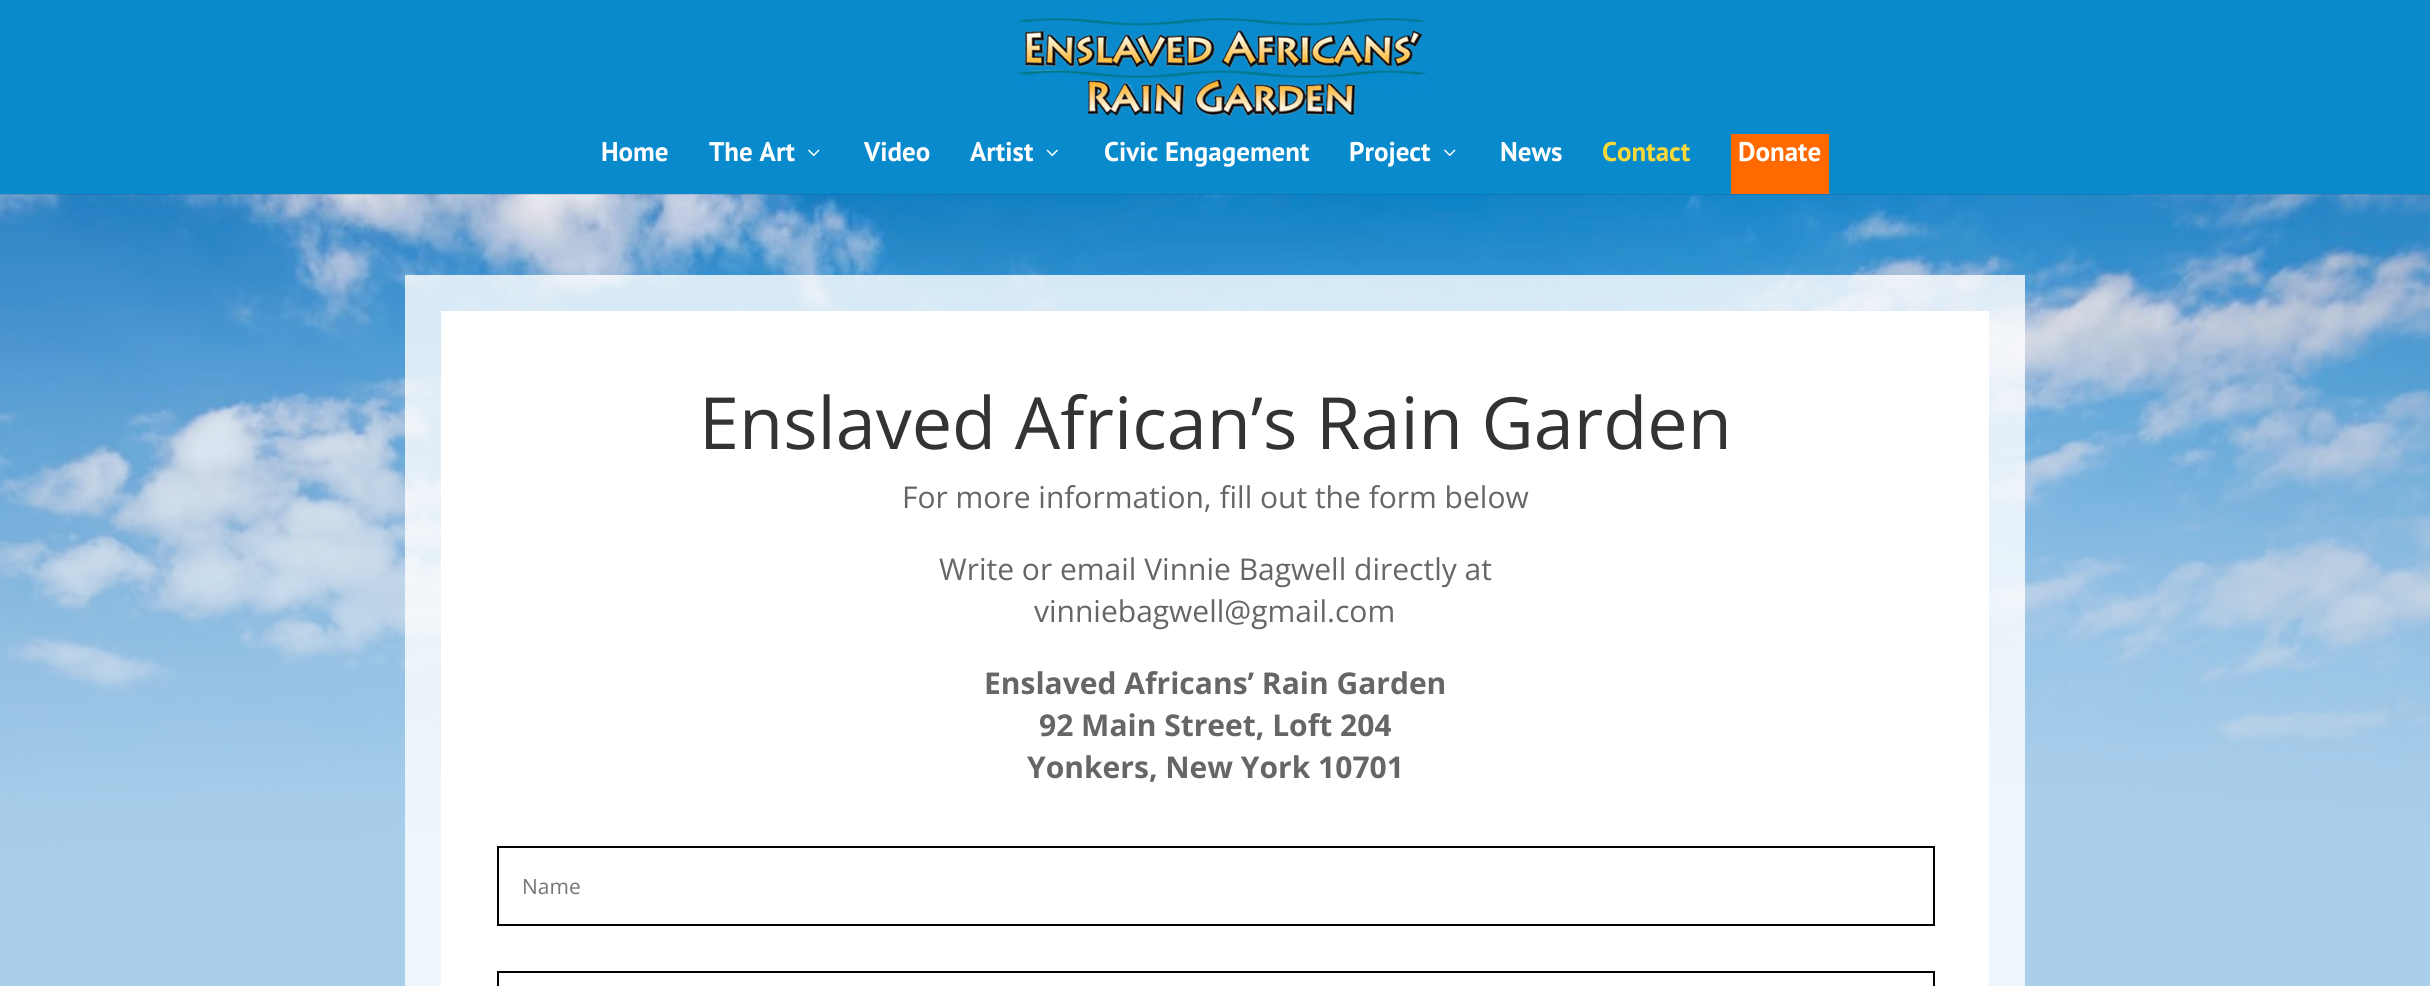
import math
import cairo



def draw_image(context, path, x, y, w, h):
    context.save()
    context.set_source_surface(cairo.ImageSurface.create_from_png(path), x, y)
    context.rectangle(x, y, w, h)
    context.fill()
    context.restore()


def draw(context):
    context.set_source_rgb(1, 1, 1)
    context.paint()
    draw_image(context, "images/1.png", 0, 194, 2430, 792)
    context.set_source_rgba(0, 0, 0, 0.1)
    context.rectangle(0, 194, 2430, 1)
    context.fill()
    context.set_source_rgb(8 / 255, 138 / 255, 205 / 255)
    context.rectangle(0, 0, 2430, 194)
    context.fill()
    draw_image(context, "images/2.png", 1016, 12, 411, 111)
    draw_image(context, "images/3.png", 808, 149, 12, 7)
    draw_image(context, "images/4.png", 1046, 149, 12, 7)
    draw_image(context, "images/3.png", 1444, 149, 12, 7)
    context.set_source_rgb(1, 105 / 255, 0)
    context.rectangle(1731, 134, 98, 60)
    context.fill()
    context.set_source_rgba(1, 1, 1, 0.8)
    context.rectangle(405, 275, 1620, 711)
    context.fill()
    context.set_source_rgb(1, 1, 1)
    context.rectangle(441, 311, 1548, 675)
    context.fill()
    context.rectangle(498, 847, 1436, 78)
    context.set_source_rgb(0, 0, 0)
    context.stroke()
    context.rectangle(498, 972, 1436, 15)
    context.stroke()
    context.select_font_face("PT Sans", cairo.FontSlant.NORMAL, cairo.FontWeight.BOLD)
    context.set_font_size(27)
    context.set_source_rgb(1, 1, 1)
    context.move_to(601, 161)
    context.show_text("Home")
    context.move_to(709, 161)
    context.show_text("The Art")
    context.move_to(864, 161)
    context.show_text("Video")
    context.move_to(970, 161)
    context.show_text("Artist")
    context.move_to(1104, 161)
    context.show_text("Civic Engagement")
    context.move_to(1349, 161)
    context.show_text("Project")
    context.move_to(1500, 161)
    context.show_text("News")
    context.set_source_rgb(249 / 255, 217 / 255, 57 / 255)
    context.move_to(1602, 161)
    context.show_text("Contact")
    context.set_source_rgb(1, 1, 1)
    context.move_to(1738, 161)
    context.show_text("Donate")
    context.select_font_face("Open Sans")
    context.set_font_size(72)
    context.set_source_rgb(51 / 255, 51 / 255, 51 / 255)
    context.move_to(699, 449)
    context.show_text("Enslaved African’s Rain Garden")
    context.set_font_size(30)
    context.set_source_rgb(102 / 255, 102 / 255, 102 / 255)
    context.move_to(902, 508)
    context.show_text("For more information, fill out the form below")
    context.move_to(939, 580)
    context.show_text("Write or email Vinnie Bagwell directly at")
    context.move_to(1034, 622)
    context.show_text("vinniebagwell@gmail.com")
    context.select_font_face("Open Sans", cairo.FontSlant.NORMAL, cairo.FontWeight.BOLD)
    context.move_to(984, 694)
    context.show_text("Enslaved Africans’ Rain Garden")
    context.move_to(1039, 736)
    context.show_text("92 Main Street, Loft 204")
    context.move_to(1027, 778)
    context.show_text("Yonkers, New York 10701")
    context.select_font_face("Open Sans")
    context.set_font_size(21)
    context.set_source_rgb(117 / 255, 117 / 255, 117 / 255)
    context.move_to(522, 894)
    context.show_text("Name")


surface = cairo.ImageSurface(cairo.Format.RGB24, 2430, 986)
context = cairo.Context(surface)
options = cairo.FontOptions()
options.set_hint_metrics(cairo.HintMetrics.OFF)
options.set_hint_style(cairo.HintStyle.NONE)
context.set_font_options(options)
context.set_miter_limit(4)
draw(context)
surface.write_to_png("out.png")
